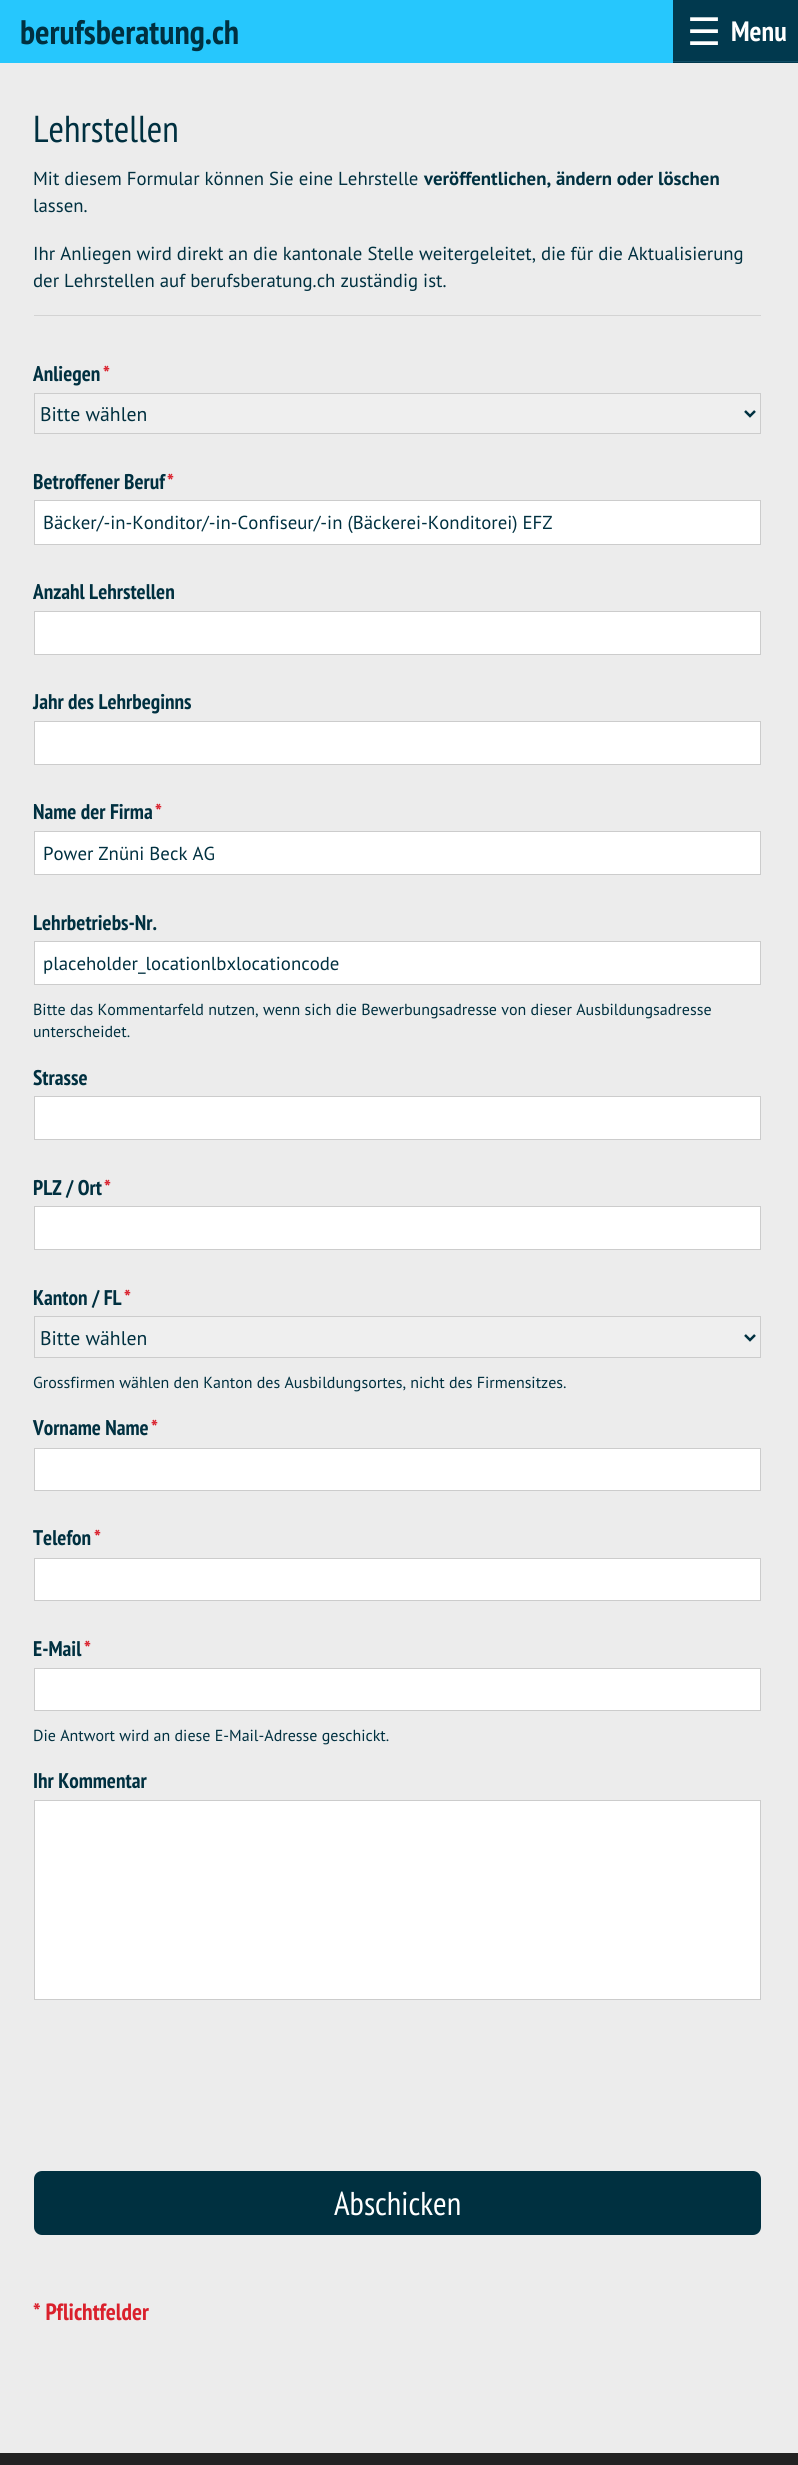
import math
import cairo



def rounded_rect(context, x, y, w, h, r):
    context.new_sub_path()
    for i, (u, v) in enumerate([(x + w - r, y + h - r), (x + r, y + h - r), (x + r, y + r), (x + w - r, y + r)]):
        context.arc(u, v, r, i * math.pi / 2, (i + 1) * math.pi / 2)
    context.close_path()


def draw(context):
    context.set_source_rgb(34 / 255, 34 / 255, 34 / 255)
    context.paint()
    context.set_source_rgb(38 / 255, 199 / 255, 253 / 255)
    context.rectangle(0, 0, 673, 63)
    context.fill()
    context.set_source_rgb(1 / 255, 57 / 255, 78 / 255)
    context.rectangle(673, 0, 125, 63)
    context.fill()
    context.set_source_rgb(18 / 255, 77 / 255, 101 / 255)
    context.rectangle(673, 61, 125, 1)
    context.fill()
    context.set_source_rgb(236 / 255, 236 / 255, 236 / 255)
    context.rectangle(0, 63, 798, 2390)
    context.fill()
    context.set_source_rgb(211 / 255, 211 / 255, 211 / 255)
    context.rectangle(34, 315, 727, 1)
    context.fill()
    context.set_source_rgb(239 / 255, 239 / 255, 239 / 255)
    context.rectangle(34.5, 393.5, 726, 40)
    context.fill_preserve()
    context.set_source_rgb(204 / 255, 204 / 255, 204 / 255)
    context.set_line_width(1)
    context.stroke()
    context.new_path()
    context.move_to(745, 411)
    context.line_to(750, 416)
    context.line_to(755, 411)
    context.set_source_rgb(0, 48 / 255, 64 / 255)
    context.set_line_width(2.5)
    context.stroke()
    context.set_source_rgb(1, 1, 1)
    context.rectangle(34.5, 500.5, 726, 44)
    context.fill_preserve()
    context.set_source_rgb(204 / 255, 204 / 255, 204 / 255)
    context.set_line_width(1)
    context.stroke()
    context.set_source_rgb(1, 1, 1)
    context.rectangle(34.5, 611.5, 726, 43)
    context.fill_preserve()
    context.set_source_rgb(204 / 255, 204 / 255, 204 / 255)
    context.stroke()
    context.set_source_rgb(1, 1, 1)
    context.rectangle(34.5, 721.5, 726, 43)
    context.fill_preserve()
    context.set_source_rgb(204 / 255, 204 / 255, 204 / 255)
    context.stroke()
    context.set_source_rgb(1, 1, 1)
    context.rectangle(34.5, 831.5, 726, 43)
    context.fill_preserve()
    context.set_source_rgb(204 / 255, 204 / 255, 204 / 255)
    context.stroke()
    context.set_source_rgb(1, 1, 1)
    context.rectangle(34.5, 941.5, 726, 43)
    context.fill_preserve()
    context.set_source_rgb(204 / 255, 204 / 255, 204 / 255)
    context.stroke()
    context.set_source_rgb(1, 1, 1)
    context.rectangle(34.5, 1096.5, 726, 43)
    context.fill_preserve()
    context.set_source_rgb(204 / 255, 204 / 255, 204 / 255)
    context.stroke()
    context.set_source_rgb(1, 1, 1)
    context.rectangle(34.5, 1206.5, 726, 43)
    context.fill_preserve()
    context.set_source_rgb(204 / 255, 204 / 255, 204 / 255)
    context.stroke()
    context.set_source_rgb(239 / 255, 239 / 255, 239 / 255)
    context.rectangle(34.5, 1316.5, 726, 41)
    context.fill_preserve()
    context.set_source_rgb(204 / 255, 204 / 255, 204 / 255)
    context.stroke()
    context.new_path()
    context.move_to(745, 1335)
    context.line_to(750, 1340)
    context.line_to(755, 1335)
    context.set_source_rgb(0, 48 / 255, 64 / 255)
    context.set_line_width(2.5)
    context.stroke()
    context.set_source_rgb(1, 1, 1)
    context.rectangle(34.5, 1448.5, 726, 42)
    context.fill_preserve()
    context.set_source_rgb(204 / 255, 204 / 255, 204 / 255)
    context.set_line_width(1)
    context.stroke()
    context.set_source_rgb(1, 1, 1)
    context.rectangle(34.5, 1558.5, 726, 42)
    context.fill_preserve()
    context.set_source_rgb(204 / 255, 204 / 255, 204 / 255)
    context.stroke()
    context.set_source_rgb(1, 1, 1)
    context.rectangle(34.5, 1668.5, 726, 42)
    context.fill_preserve()
    context.set_source_rgb(204 / 255, 204 / 255, 204 / 255)
    context.stroke()
    context.set_source_rgb(1, 1, 1)
    context.rectangle(34.5, 1800.5, 726, 199)
    context.fill_preserve()
    context.set_source_rgb(204 / 255, 204 / 255, 204 / 255)
    context.stroke()
    context.set_source_rgb(0, 48 / 255, 64 / 255)
    rounded_rect(context, 34, 2171, 727, 64, 8)
    context.fill()
    context.select_font_face("PT Sans Narrow", cairo.FontSlant.NORMAL, cairo.FontWeight.BOLD)
    context.set_font_size(34)
    context.move_to(20, 44)
    context.show_text("berufsberatung.ch")
    context.select_font_face("DejaVu Sans")
    context.set_font_size(38)
    context.set_source_rgb(1, 1, 1)
    context.move_to(687, 45)
    context.show_text("☰")
    context.select_font_face("PT Sans Narrow", cairo.FontSlant.NORMAL, cairo.FontWeight.BOLD)
    context.set_font_size(28)
    context.move_to(731, 41)
    context.show_text("Menu")
    context.select_font_face("PT Sans Narrow")
    context.set_font_size(37.5)
    context.set_source_rgb(0, 48 / 255, 64 / 255)
    context.move_to(33, 142)
    context.show_text("Lehrstellen")
    context.select_font_face("PT Sans")
    context.set_font_size(18.8)
    context.move_to(33, 185)
    context.show_text("Mit diesem Formular können Sie eine Lehrstelle")
    context.select_font_face("PT Sans", cairo.FontSlant.NORMAL, cairo.FontWeight.BOLD)
    context.move_to(424, 185)
    context.show_text("veröffentlichen, ändern oder löschen")
    context.select_font_face("PT Sans")
    context.move_to(33, 212)
    context.show_text("lassen.")
    context.move_to(33, 260)
    context.show_text("Ihr Anliegen wird direkt an die kantonale Stelle weitergeleitet, die für die Aktualisierung")
    context.move_to(33, 287)
    context.show_text("der Lehrstellen auf berufsberatung.ch zuständig ist.")
    context.select_font_face("PT Sans Narrow", cairo.FontSlant.NORMAL, cairo.FontWeight.BOLD)
    context.set_font_size(21.25)
    context.move_to(33, 381)
    context.show_text("Anliegen")
    context.set_source_rgb(218 / 255, 32 / 255, 44 / 255)
    context.move_to(103, 381)
    context.show_text("*")
    context.select_font_face("PT Sans")
    context.set_font_size(19.75)
    context.set_source_rgb(0, 48 / 255, 64 / 255)
    context.move_to(40, 421)
    context.show_text("Bitte wählen")
    context.select_font_face("PT Sans Narrow", cairo.FontSlant.NORMAL, cairo.FontWeight.BOLD)
    context.set_font_size(21.25)
    context.move_to(33, 489)
    context.show_text("Betroffener Beruf")
    context.set_source_rgb(218 / 255, 32 / 255, 44 / 255)
    context.move_to(167, 489)
    context.show_text("*")
    context.select_font_face("PT Sans")
    context.set_font_size(18.8)
    context.set_source_rgb(0, 48 / 255, 64 / 255)
    context.move_to(43, 529)
    context.show_text("Bäcker/-in-Konditor/-in-Confiseur/-in (Bäckerei-Konditorei) EFZ")
    context.select_font_face("PT Sans Narrow", cairo.FontSlant.NORMAL, cairo.FontWeight.BOLD)
    context.set_font_size(21.25)
    context.move_to(33, 599)
    context.show_text("Anzahl Lehrstellen")
    context.move_to(33, 709)
    context.show_text("Jahr des Lehrbeginns")
    context.move_to(33, 819)
    context.show_text("Name der Firma")
    context.set_source_rgb(218 / 255, 32 / 255, 44 / 255)
    context.move_to(155, 819)
    context.show_text("*")
    context.select_font_face("PT Sans")
    context.set_font_size(18.8)
    context.set_source_rgb(0, 48 / 255, 64 / 255)
    context.move_to(43, 860)
    context.show_text("Power Znüni Beck AG")
    context.select_font_face("PT Sans Narrow", cairo.FontSlant.NORMAL, cairo.FontWeight.BOLD)
    context.set_font_size(21.25)
    context.move_to(33, 930)
    context.show_text("Lehrbetriebs-Nr.")
    context.select_font_face("PT Sans")
    context.set_font_size(18.8)
    context.move_to(43, 970)
    context.show_text("placeholder_locationlbxlocationcode")
    context.set_font_size(16)
    context.move_to(33, 1015)
    context.show_text("Bitte das Kommentarfeld nutzen, wenn sich die Bewerbungsadresse von dieser Ausbildungsadresse")
    context.move_to(33, 1037)
    context.show_text("unterscheidet.")
    context.select_font_face("PT Sans Narrow", cairo.FontSlant.NORMAL, cairo.FontWeight.BOLD)
    context.set_font_size(21.25)
    context.move_to(33, 1085)
    context.show_text("Strasse")
    context.move_to(33, 1195)
    context.show_text("PLZ / Ort")
    context.set_source_rgb(218 / 255, 32 / 255, 44 / 255)
    context.move_to(104, 1195)
    context.show_text("*")
    context.set_source_rgb(0, 48 / 255, 64 / 255)
    context.move_to(33, 1305)
    context.show_text("Kanton / FL")
    context.set_source_rgb(218 / 255, 32 / 255, 44 / 255)
    context.move_to(124, 1305)
    context.show_text("*")
    context.select_font_face("PT Sans")
    context.set_font_size(19.75)
    context.set_source_rgb(0, 48 / 255, 64 / 255)
    context.move_to(40, 1345)
    context.show_text("Bitte wählen")
    context.set_font_size(16)
    context.move_to(33, 1388)
    context.show_text("Grossfirmen wählen den Kanton des Ausbildungsortes, nicht des Firmensitzes.")
    context.select_font_face("PT Sans Narrow", cairo.FontSlant.NORMAL, cairo.FontWeight.BOLD)
    context.set_font_size(21.25)
    context.move_to(33, 1435)
    context.show_text("Vorname Name")
    context.set_source_rgb(218 / 255, 32 / 255, 44 / 255)
    context.move_to(151, 1435)
    context.show_text("*")
    context.set_source_rgb(0, 48 / 255, 64 / 255)
    context.move_to(33, 1545)
    context.show_text("Telefon")
    context.set_source_rgb(218 / 255, 32 / 255, 44 / 255)
    context.move_to(94, 1545)
    context.show_text("*")
    context.set_source_rgb(0, 48 / 255, 64 / 255)
    context.move_to(33, 1656)
    context.show_text("E-Mail")
    context.set_source_rgb(218 / 255, 32 / 255, 44 / 255)
    context.move_to(84, 1656)
    context.show_text("*")
    context.select_font_face("PT Sans")
    context.set_font_size(16)
    context.set_source_rgb(0, 48 / 255, 64 / 255)
    context.move_to(33, 1741)
    context.show_text("Die Antwort wird an diese E-Mail-Adresse geschickt.")
    context.select_font_face("PT Sans Narrow", cairo.FontSlant.NORMAL, cairo.FontWeight.BOLD)
    context.set_font_size(21.25)
    context.move_to(33, 1788)
    context.show_text("Ihr Kommentar")
    context.select_font_face("PT Sans Narrow")
    context.set_font_size(33)
    context.set_source_rgb(1, 1, 1)
    context.move_to(334, 2215)
    context.show_text("Abschicken")
    context.select_font_face("PT Sans Narrow", cairo.FontSlant.NORMAL, cairo.FontWeight.BOLD)
    context.set_font_size(23.5)
    context.set_source_rgb(218 / 255, 32 / 255, 44 / 255)
    context.move_to(33, 2320)
    context.show_text("* Pflichtfelder")


surface = cairo.ImageSurface(cairo.Format.RGB24, 798, 2465)
context = cairo.Context(surface)
options = cairo.FontOptions()
options.set_hint_metrics(cairo.HintMetrics.OFF)
options.set_hint_style(cairo.HintStyle.NONE)
context.set_font_options(options)
context.set_miter_limit(4)
draw(context)
surface.write_to_png("out.png")
